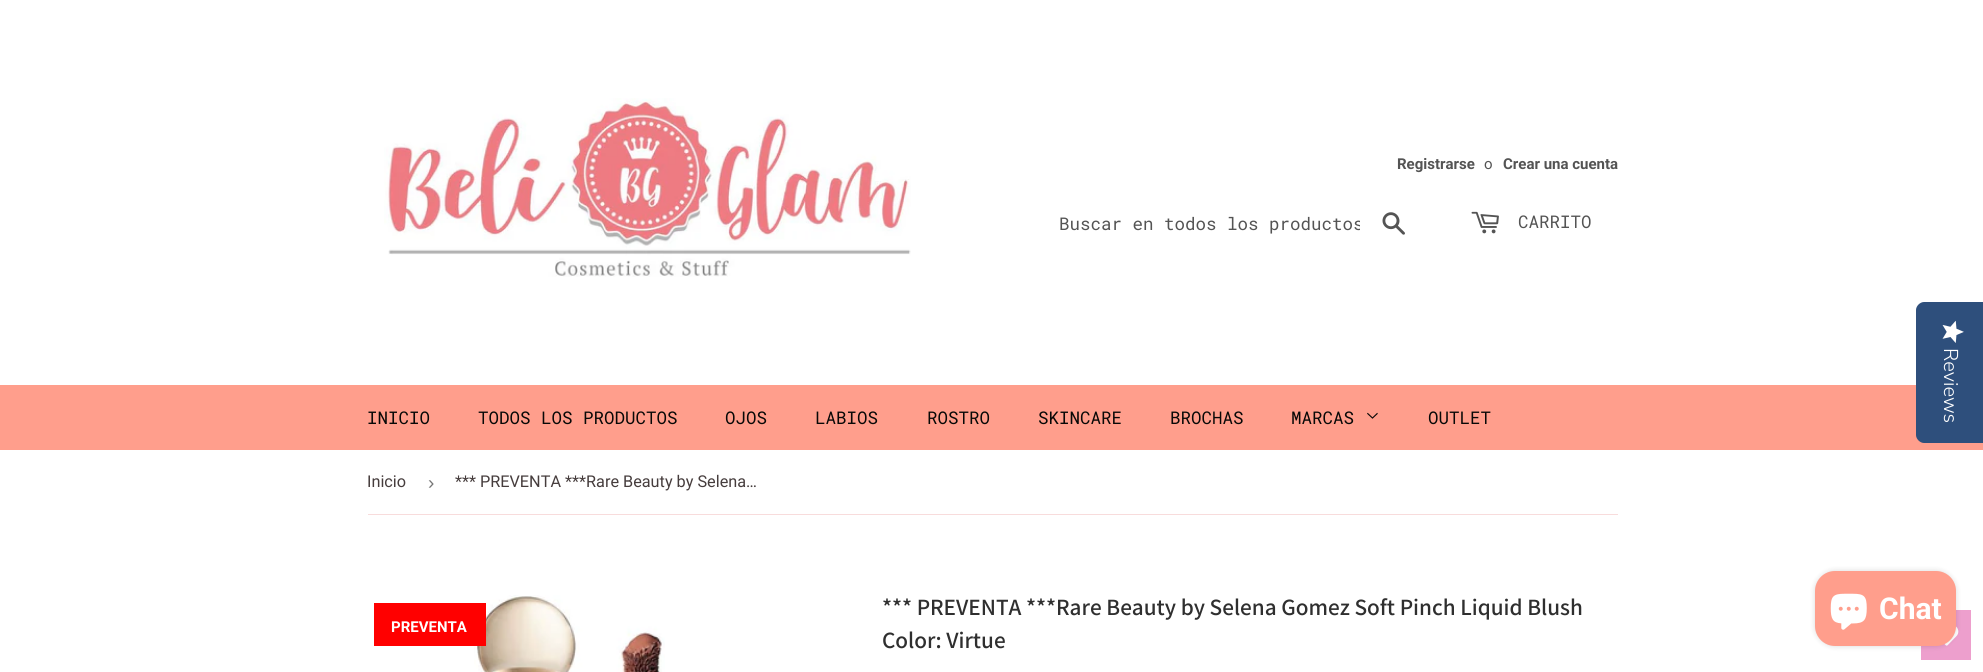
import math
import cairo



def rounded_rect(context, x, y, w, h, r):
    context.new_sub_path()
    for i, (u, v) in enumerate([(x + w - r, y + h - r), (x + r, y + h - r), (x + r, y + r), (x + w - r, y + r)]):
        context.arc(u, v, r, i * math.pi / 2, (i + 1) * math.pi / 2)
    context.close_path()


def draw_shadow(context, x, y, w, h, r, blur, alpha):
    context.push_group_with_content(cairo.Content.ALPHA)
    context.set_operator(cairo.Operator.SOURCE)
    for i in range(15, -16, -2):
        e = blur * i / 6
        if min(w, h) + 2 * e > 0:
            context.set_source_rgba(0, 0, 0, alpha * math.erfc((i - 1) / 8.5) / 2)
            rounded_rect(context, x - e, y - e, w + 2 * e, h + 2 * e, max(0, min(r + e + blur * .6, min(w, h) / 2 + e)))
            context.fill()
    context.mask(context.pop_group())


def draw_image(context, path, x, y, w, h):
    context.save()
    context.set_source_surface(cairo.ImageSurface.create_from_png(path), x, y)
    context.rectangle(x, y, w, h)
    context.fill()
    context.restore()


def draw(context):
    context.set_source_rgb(1, 1, 1)
    context.paint()
    draw_image(context, "images/1.png", 384, 98, 527, 179)
    draw_image(context, "images/2.png", 1382, 212, 23, 23)
    draw_image(context, "images/3.png", 1471, 211, 28, 23)
    context.set_source_rgb(1, 158 / 255, 140 / 255)
    context.rectangle(0, 385, 1983, 65)
    context.fill()
    draw_image(context, "images/4.png", 1367, 412, 11, 7)
    context.set_source_rgb(46 / 255, 79 / 255, 124 / 255)
    context.new_path()
    context.move_to(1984, 302)
    context.line_to(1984, 443)
    context.line_to(1924, 443)
    context.curve_to(1920, 443, 1916, 439, 1916, 435)
    context.line_to(1916, 310)
    context.curve_to(1916, 306, 1920, 302, 1924, 302)
    context.close_path()
    context.fill()
    draw_image(context, "images/5.png", 1942, 320, 22, 23)
    context.set_source_rgb(248 / 255, 220 / 255, 220 / 255)
    context.rectangle(368, 514, 1250, 1)
    context.fill()
    draw_image(context, "images/6.png", 474, 595, 191, 77)
    context.set_source_rgb(1, 0, 0)
    context.rectangle(374, 603, 112, 43)
    context.fill()
    context.set_source_rgb(237 / 255, 159 / 255, 205 / 255)
    context.rectangle(1921, 610, 50, 50)
    context.fill()
    draw_image(context, "images/8.png", 1944, 626, 15, 20)
    context.set_source_rgb(0, 0, 0)
    draw_shadow(context, 1815, 571, 141, 75, 20, 3, 0.15)
    context.set_source_rgb(1, 158 / 255, 140 / 255)
    rounded_rect(context, 1815, 571, 141, 75, 20)
    context.fill()
    draw_image(context, "images/7.png", 1830, 593, 37, 37)
    context.select_font_face("Roboto", cairo.FontSlant.NORMAL, cairo.FontWeight.BOLD)
    context.set_font_size(15)
    context.set_source_rgb(84 / 255, 84 / 255, 84 / 255)
    context.move_to(1397, 169)
    context.show_text("Registrarse")
    context.select_font_face("Roboto")
    context.move_to(1484, 169)
    context.show_text("o")
    context.select_font_face("Roboto", cairo.FontSlant.NORMAL, cairo.FontWeight.BOLD)
    context.move_to(1503, 169)
    context.show_text("Crear una cuenta")
    context.save()
    context.rectangle(1059, 211, 301, 24)
    context.clip()
    context.select_font_face("Roboto Mono")
    context.set_font_size(17.5)
    context.move_to(1059, 230)
    context.show_text("Buscar en todos los productos")
    context.restore()
    context.select_font_face("Roboto Mono")
    context.set_font_size(17.5)
    context.move_to(1518, 228)
    context.show_text("CARRITO")
    context.set_source_rgb(8 / 255, 8 / 255, 7 / 255)
    context.move_to(367, 424)
    context.show_text("INICIO")
    context.move_to(478, 424)
    context.show_text("TODOS LOS PRODUCTOS")
    context.move_to(725, 424)
    context.show_text("OJOS")
    context.move_to(815, 424)
    context.show_text("LABIOS")
    context.move_to(927, 424)
    context.show_text("ROSTRO")
    context.move_to(1038, 424)
    context.show_text("SKINCARE")
    context.move_to(1170, 424)
    context.show_text("BROCHAS")
    context.move_to(1291, 424)
    context.show_text("MARCAS")
    context.move_to(1428, 424)
    context.show_text("OUTLET")
    context.select_font_face("Nunito Sans Light")
    context.set_font_size(20)
    context.set_source_rgb(1, 1, 1)
    context.save()
    context.translate(1944, 348)
    context.rotate(90 * math.pi / 180)
    context.move_to(0, 0)
    context.show_text("Reviews")
    context.restore()
    context.select_font_face("Roboto")
    context.set_font_size(16.25)
    context.set_source_rgb(70 / 255, 61 / 255, 61 / 255)
    context.move_to(367, 487)
    context.show_text("Inicio")
    context.select_font_face("Liberation Sans")
    context.set_font_size(19)
    context.set_source_rgb(118 / 255, 118 / 255, 118 / 255)
    context.move_to(428, 489)
    context.show_text("›")
    context.select_font_face("Roboto")
    context.set_font_size(16.25)
    context.set_source_rgb(70 / 255, 61 / 255, 61 / 255)
    context.move_to(455, 487)
    context.show_text("*** PREVENTA ***Rare Beauty by Selena…")
    context.select_font_face("Roboto", cairo.FontSlant.NORMAL, cairo.FontWeight.BOLD)
    context.set_font_size(15)
    context.set_source_rgb(1, 1, 1)
    context.move_to(391, 632)
    context.show_text("PREVENTA")
    context.select_font_face("Assistant SemiBold")
    context.set_font_size(23.3)
    context.set_source_rgb(47 / 255, 47 / 255, 47 / 255)
    context.move_to(882, 615)
    context.show_text("*** PREVENTA ***Rare Beauty by Selena Gomez Soft Pinch Liquid Blush")
    context.move_to(882, 648)
    context.show_text("Color: Virtue")
    context.select_font_face("Roboto", cairo.FontSlant.NORMAL, cairo.FontWeight.BOLD)
    context.set_font_size(30)
    context.set_source_rgb(1, 1, 1)
    context.move_to(1879, 619)
    context.show_text("Chat")


surface = cairo.ImageSurface(cairo.Format.RGB24, 1983, 672)
context = cairo.Context(surface)
options = cairo.FontOptions()
options.set_hint_metrics(cairo.HintMetrics.OFF)
options.set_hint_style(cairo.HintStyle.NONE)
context.set_font_options(options)
context.set_miter_limit(4)
draw(context)
surface.write_to_png("out.png")
